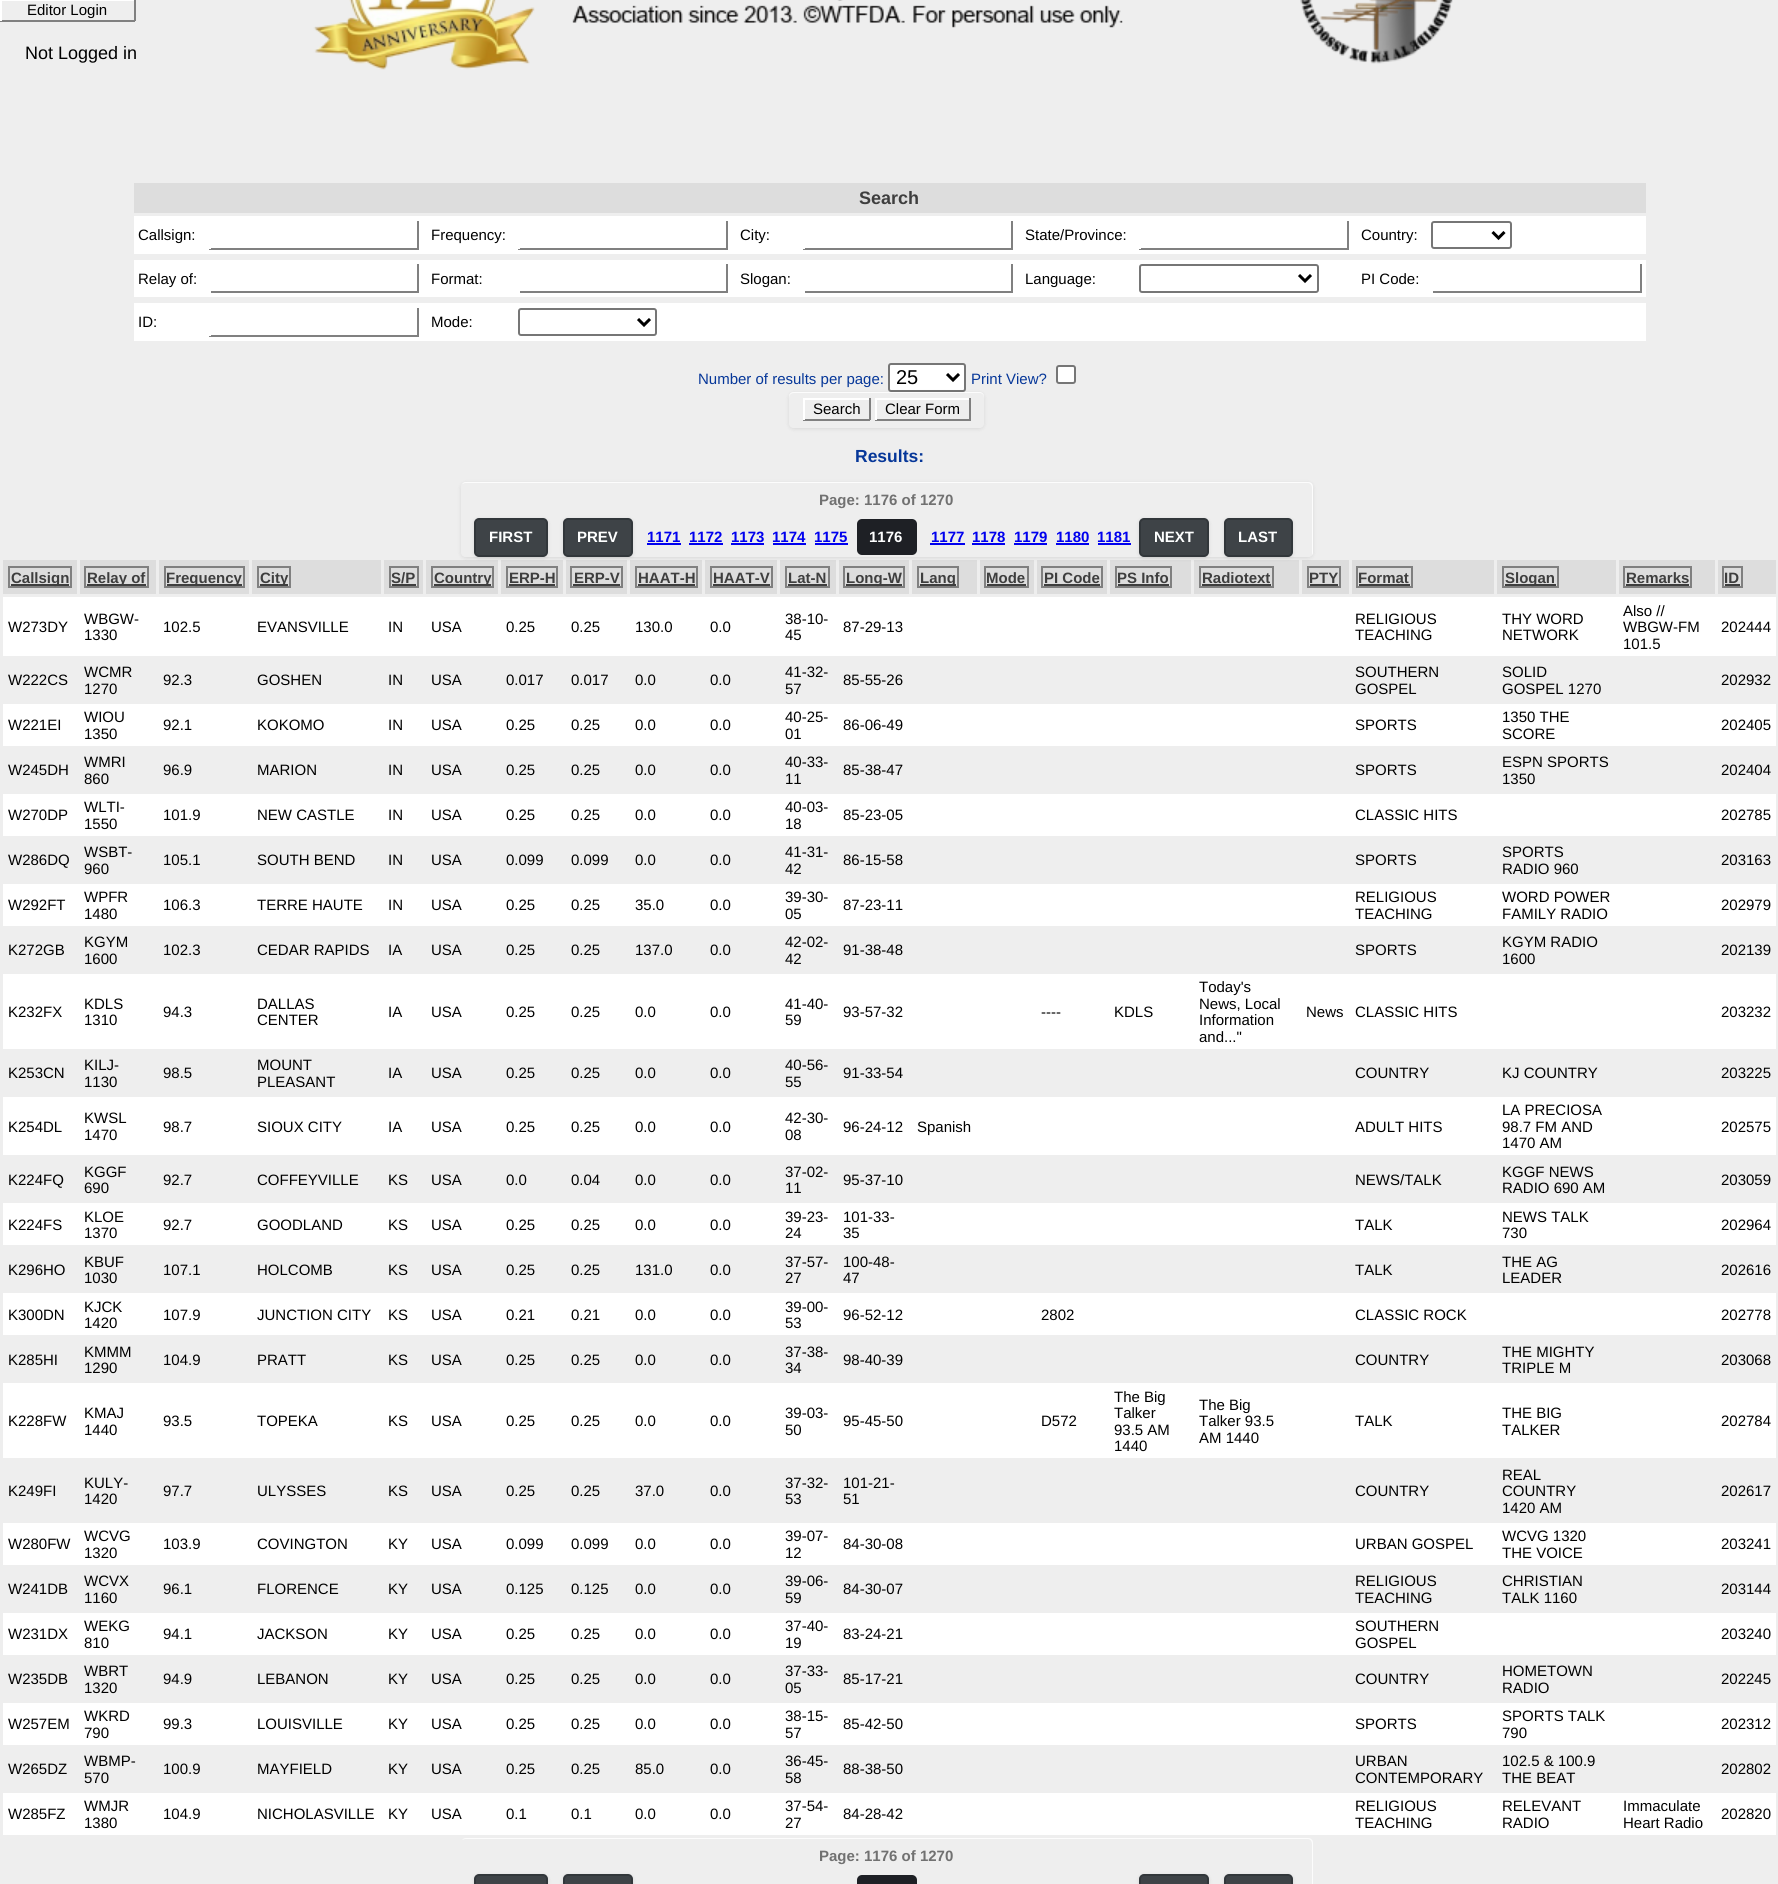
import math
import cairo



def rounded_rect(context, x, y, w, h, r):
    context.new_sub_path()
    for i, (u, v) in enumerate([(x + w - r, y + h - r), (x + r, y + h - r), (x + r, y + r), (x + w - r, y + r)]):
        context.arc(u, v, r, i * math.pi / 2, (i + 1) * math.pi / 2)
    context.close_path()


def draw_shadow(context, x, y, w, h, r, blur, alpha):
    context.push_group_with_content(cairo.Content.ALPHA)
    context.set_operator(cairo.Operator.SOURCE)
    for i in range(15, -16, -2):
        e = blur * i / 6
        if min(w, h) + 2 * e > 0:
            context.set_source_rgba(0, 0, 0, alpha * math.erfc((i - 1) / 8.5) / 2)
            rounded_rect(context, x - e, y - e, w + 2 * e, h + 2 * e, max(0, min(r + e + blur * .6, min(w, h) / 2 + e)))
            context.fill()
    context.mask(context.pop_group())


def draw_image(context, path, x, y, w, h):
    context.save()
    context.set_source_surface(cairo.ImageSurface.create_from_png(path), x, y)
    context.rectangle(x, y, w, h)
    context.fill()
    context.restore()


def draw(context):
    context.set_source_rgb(238 / 255, 238 / 255, 238 / 255)
    context.paint()
    context.set_source_rgb(1, 1, 1)
    context.rectangle(0, 0, 135, 1)
    context.fill()
    context.set_source_rgb(128 / 255, 128 / 255, 128 / 255)
    context.rectangle(134, 0, 2, 21)
    context.fill()
    context.rectangle(0, 20, 135, 2)
    context.fill()
    context.set_source_rgb(1, 1, 1)
    context.rectangle(0, 0, 2, 21)
    context.fill()
    draw_image(context, "images/1.png", 313, 0, 1140, 70)
    context.set_source_rgb(221 / 255, 221 / 255, 221 / 255)
    context.rectangle(134, 183, 1512, 30)
    context.fill()
    context.set_source_rgb(1, 1, 1)
    context.rectangle(134, 216, 1512, 38)
    context.fill()
    context.set_source_rgb(128 / 255, 128 / 255, 128 / 255)
    context.rectangle(417, 221, 2, 28)
    context.fill()
    context.rectangle(209, 248, 210, 2)
    context.fill()
    context.set_source_rgb(1, 1, 1)
    context.rectangle(209, 248, 2, 1)
    context.fill()
    context.set_source_rgb(128 / 255, 128 / 255, 128 / 255)
    context.rectangle(726, 221, 2, 28)
    context.fill()
    context.rectangle(518, 248, 210, 2)
    context.fill()
    context.set_source_rgb(1, 1, 1)
    context.rectangle(518, 248, 2, 1)
    context.fill()
    context.set_source_rgb(128 / 255, 128 / 255, 128 / 255)
    context.rectangle(1011, 221, 2, 28)
    context.fill()
    context.rectangle(803, 248, 210, 2)
    context.fill()
    context.set_source_rgb(1, 1, 1)
    context.rectangle(803, 248, 2, 1)
    context.fill()
    context.set_source_rgb(128 / 255, 128 / 255, 128 / 255)
    context.rectangle(1347, 221, 2, 28)
    context.fill()
    context.rectangle(1139, 248, 210, 2)
    context.fill()
    context.set_source_rgb(1, 1, 1)
    context.rectangle(1139, 248, 2, 1)
    context.fill()
    rounded_rect(context, 1432, 222, 79, 26, 2)
    context.set_source_rgb(118 / 255, 118 / 255, 118 / 255)
    context.stroke()
    context.new_path()
    context.move_to(1492.5, 232)
    context.line_to(1498.5, 238)
    context.line_to(1504.5, 232)
    context.set_source_rgb(0, 0, 0)
    context.set_line_width(3)
    context.stroke()
    context.set_source_rgb(1, 1, 1)
    context.rectangle(134, 260, 1512, 37)
    context.fill()
    context.set_source_rgb(128 / 255, 128 / 255, 128 / 255)
    context.rectangle(417, 264, 2, 29)
    context.fill()
    context.rectangle(209, 291, 210, 2)
    context.fill()
    context.set_source_rgb(1, 1, 1)
    context.rectangle(209, 291, 2, 2)
    context.fill()
    context.set_source_rgb(128 / 255, 128 / 255, 128 / 255)
    context.rectangle(726, 264, 2, 29)
    context.fill()
    context.rectangle(518, 291, 210, 2)
    context.fill()
    context.set_source_rgb(1, 1, 1)
    context.rectangle(518, 291, 2, 2)
    context.fill()
    context.set_source_rgb(128 / 255, 128 / 255, 128 / 255)
    context.rectangle(1011, 264, 2, 29)
    context.fill()
    context.rectangle(803, 291, 210, 2)
    context.fill()
    context.set_source_rgb(1, 1, 1)
    context.rectangle(803, 291, 2, 2)
    context.fill()
    rounded_rect(context, 1140, 265, 178, 27, 2)
    context.set_source_rgb(118 / 255, 118 / 255, 118 / 255)
    context.set_line_width(2)
    context.stroke()
    context.new_path()
    context.move_to(1299, 275)
    context.line_to(1305, 281)
    context.line_to(1311, 275)
    context.set_source_rgb(0, 0, 0)
    context.set_line_width(3)
    context.stroke()
    context.set_source_rgb(128 / 255, 128 / 255, 128 / 255)
    context.rectangle(1640, 264, 2, 29)
    context.fill()
    context.rectangle(1431, 291, 210, 2)
    context.fill()
    context.set_source_rgb(1, 1, 1)
    context.rectangle(1431, 291, 2, 2)
    context.fill()
    context.rectangle(134, 303, 1512, 38)
    context.fill()
    context.set_source_rgb(128 / 255, 128 / 255, 128 / 255)
    context.rectangle(417, 308, 2, 28)
    context.fill()
    context.rectangle(209, 335, 210, 2)
    context.fill()
    context.set_source_rgb(1, 1, 1)
    context.rectangle(209, 335, 2, 1)
    context.fill()
    rounded_rect(context, 519, 309, 137, 26, 2)
    context.set_source_rgb(118 / 255, 118 / 255, 118 / 255)
    context.set_line_width(2)
    context.stroke()
    context.new_path()
    context.move_to(638, 319)
    context.line_to(644, 325)
    context.line_to(650, 319)
    context.set_source_rgb(0, 0, 0)
    context.set_line_width(3)
    context.stroke()
    context.set_source_rgb(1, 1, 1)
    rounded_rect(context, 889, 364, 76, 27, 2)
    context.fill_preserve()
    context.set_source_rgb(118 / 255, 118 / 255, 118 / 255)
    context.set_line_width(2)
    context.stroke()
    context.new_path()
    context.move_to(947, 374)
    context.line_to(953, 380)
    context.line_to(959, 374)
    context.set_source_rgb(0, 0, 0)
    context.set_line_width(3)
    context.stroke()
    context.set_source_rgb(1, 1, 1)
    rounded_rect(context, 1057, 366, 18, 17, 2)
    context.fill_preserve()
    context.set_source_rgb(118 / 255, 118 / 255, 118 / 255)
    context.set_line_width(2)
    context.stroke()
    context.save()
    context.set_fill_rule(cairo.FillRule.EVEN_ODD)
    context.new_path()
    context.move_to(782, 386)
    context.line_to(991, 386)
    context.line_to(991, 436)
    context.line_to(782, 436)
    context.close_path()
    context.move_to(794, 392)
    context.line_to(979, 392)
    context.curve_to(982, 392, 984, 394, 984, 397)
    context.line_to(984, 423)
    context.curve_to(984, 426, 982, 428, 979, 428)
    context.line_to(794, 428)
    context.curve_to(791, 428, 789, 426, 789, 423)
    context.line_to(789, 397)
    context.curve_to(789, 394, 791, 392, 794, 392)
    context.close_path()
    context.clip()
    context.set_source_rgb(0, 0, 0)
    draw_shadow(context, 789, 393, 195, 36, 5, 2, 0.1)
    context.restore()
    context.set_source_rgb(252 / 255, 252 / 255, 252 / 255)
    context.new_path()
    context.move_to(794, 393)
    context.line_to(980, 393)
    context.curve_to(982, 393, 984, 395, 984, 398)
    context.line_to(984, 397)
    context.curve_to(984, 394, 982, 392, 979, 392)
    context.line_to(794, 392)
    context.curve_to(791, 392, 789, 394, 789, 397)
    context.line_to(789, 398)
    context.curve_to(789, 395, 791, 393, 794, 393)
    context.close_path()
    context.fill()
    context.set_source_rgb(1, 1, 1)
    context.rectangle(803, 398, 67, 2)
    context.fill()
    context.set_source_rgb(128 / 255, 128 / 255, 128 / 255)
    context.rectangle(869, 398, 2, 22)
    context.fill()
    context.rectangle(803, 419, 67, 2)
    context.fill()
    context.set_source_rgb(1, 1, 1)
    context.rectangle(803, 398, 2, 22)
    context.fill()
    context.rectangle(875, 398, 96, 2)
    context.fill()
    context.set_source_rgb(128 / 255, 128 / 255, 128 / 255)
    context.rectangle(969, 398, 2, 22)
    context.fill()
    context.rectangle(875, 419, 96, 2)
    context.fill()
    context.set_source_rgb(1, 1, 1)
    context.rectangle(875, 398, 2, 22)
    context.fill()
    context.set_source_rgb(221 / 255, 221 / 255, 221 / 255)
    context.rectangle(426, 560, 72, 34)
    context.fill()
    context.rectangle(501, 560, 62, 34)
    context.fill()
    context.rectangle(566, 560, 61, 34)
    context.fill()
    context.rectangle(630, 560, 72, 34)
    context.fill()
    context.rectangle(705, 560, 72, 34)
    context.fill()
    context.rectangle(780, 560, 56, 34)
    context.fill()
    context.rectangle(839, 560, 70, 34)
    context.fill()
    context.rectangle(912, 560, 65, 34)
    context.fill()
    context.rectangle(980, 560, 54, 34)
    context.fill()
    context.rectangle(1037, 560, 70, 34)
    context.fill()
    context.rectangle(1110, 560, 81, 34)
    context.fill()
    context.rectangle(1194, 560, 105, 34)
    context.fill()
    context.rectangle(1302, 560, 47, 34)
    context.fill()
    context.save()
    context.set_fill_rule(cairo.FillRule.EVEN_ODD)
    context.new_path()
    context.move_to(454, 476)
    context.line_to(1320, 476)
    context.line_to(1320, 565)
    context.line_to(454, 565)
    context.close_path()
    context.move_to(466, 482)
    context.line_to(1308, 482)
    context.curve_to(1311, 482, 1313, 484, 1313, 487)
    context.line_to(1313, 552)
    context.curve_to(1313, 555, 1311, 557, 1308, 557)
    context.line_to(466, 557)
    context.curve_to(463, 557, 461, 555, 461, 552)
    context.line_to(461, 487)
    context.curve_to(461, 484, 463, 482, 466, 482)
    context.close_path()
    context.clip()
    context.set_source_rgb(0, 0, 0)
    draw_shadow(context, 461, 483, 852, 75, 5, 2, 0.1)
    context.restore()
    context.set_source_rgba(1, 1, 1, 0.8)
    context.new_path()
    context.move_to(465, 483)
    context.line_to(1308, 483)
    context.curve_to(1310, 483, 1312, 485, 1312, 488)
    context.line_to(1312, 555)
    context.curve_to(1313, 554, 1313, 553, 1313, 552)
    context.line_to(1313, 487)
    context.curve_to(1313, 484, 1311, 482, 1308, 482)
    context.line_to(466, 482)
    context.curve_to(464, 482, 463, 483, 462, 484)
    context.close_path()
    context.fill()
    context.set_source_rgb(0, 0, 0)
    draw_shadow(context, 474, 519, 74, 39, 5, 2, 0.1)
    context.set_source_rgb(62 / 255, 67 / 255, 71 / 255)
    rounded_rect(context, 475, 519, 72, 37, 4)
    context.fill_preserve()
    context.set_source_rgb(50 / 255, 55 / 255, 59 / 255)
    context.stroke()
    context.set_source_rgb(0, 0, 0)
    draw_shadow(context, 563, 519, 70, 39, 5, 2, 0.1)
    context.set_source_rgb(62 / 255, 67 / 255, 71 / 255)
    rounded_rect(context, 564, 519, 68, 37, 4)
    context.fill_preserve()
    context.set_source_rgb(50 / 255, 55 / 255, 59 / 255)
    context.stroke()
    context.set_source_rgb(0, 0, 238 / 255)
    context.rectangle(647, 543, 34, 2)
    context.fill()
    context.rectangle(689, 543, 34, 2)
    context.fill()
    context.rectangle(731, 543, 33, 2)
    context.fill()
    context.rectangle(773, 543, 33, 2)
    context.fill()
    context.rectangle(815, 543, 33, 2)
    context.fill()
    context.set_source_rgb(30 / 255, 32 / 255, 37 / 255)
    rounded_rect(context, 857, 519, 60, 36, 5)
    context.fill()
    context.set_source_rgb(0, 0, 238 / 255)
    context.rectangle(930, 543, 35, 2)
    context.fill()
    context.rectangle(972, 543, 33, 2)
    context.fill()
    context.rectangle(1014, 543, 33, 2)
    context.fill()
    context.rectangle(1056, 543, 33, 2)
    context.fill()
    context.rectangle(1098, 543, 33, 2)
    context.fill()
    context.set_source_rgb(0, 0, 0)
    draw_shadow(context, 1139, 519, 70, 39, 5, 2, 0.1)
    context.set_source_rgb(62 / 255, 67 / 255, 71 / 255)
    rounded_rect(context, 1140, 519, 68, 37, 4)
    context.fill_preserve()
    context.set_source_rgb(50 / 255, 55 / 255, 59 / 255)
    context.stroke()
    context.set_source_rgb(0, 0, 0)
    draw_shadow(context, 1224, 519, 69, 39, 5, 2, 0.1)
    context.set_source_rgb(62 / 255, 67 / 255, 71 / 255)
    rounded_rect(context, 1225, 519, 67, 37, 4)
    context.fill_preserve()
    context.set_source_rgb(50 / 255, 55 / 255, 59 / 255)
    context.stroke()
    context.set_source_rgb(221 / 255, 221 / 255, 221 / 255)
    context.rectangle(3, 560, 74, 34)
    context.fill()
    context.rectangle(9, 567, 62, 20)
    context.set_source_rgb(128 / 255, 128 / 255, 128 / 255)
    context.stroke()
    context.set_source_rgb(62 / 255, 62 / 255, 62 / 255)
    context.rectangle(11, 584, 58, 2)
    context.fill()
    context.set_source_rgb(221 / 255, 221 / 255, 221 / 255)
    context.rectangle(80, 560, 76, 34)
    context.fill()
    context.rectangle(85, 567, 63, 20)
    context.set_source_rgb(128 / 255, 128 / 255, 128 / 255)
    context.stroke()
    context.set_source_rgb(62 / 255, 62 / 255, 62 / 255)
    context.rectangle(87, 584, 59, 2)
    context.fill()
    context.set_source_rgb(221 / 255, 221 / 255, 221 / 255)
    context.rectangle(159, 560, 90, 34)
    context.fill()
    context.rectangle(165, 567, 79, 20)
    context.set_source_rgb(128 / 255, 128 / 255, 128 / 255)
    context.stroke()
    context.set_source_rgb(62 / 255, 62 / 255, 62 / 255)
    context.rectangle(167, 584, 75, 2)
    context.fill()
    context.set_source_rgb(221 / 255, 221 / 255, 221 / 255)
    context.rectangle(252, 560, 129, 34)
    context.fill()
    context.rectangle(258, 567, 32, 20)
    context.set_source_rgb(128 / 255, 128 / 255, 128 / 255)
    context.stroke()
    context.set_source_rgb(62 / 255, 62 / 255, 62 / 255)
    context.rectangle(260, 584, 28, 2)
    context.fill()
    context.set_source_rgb(221 / 255, 221 / 255, 221 / 255)
    context.rectangle(384, 560, 39, 34)
    context.fill()
    context.rectangle(390, 567, 28, 20)
    context.set_source_rgb(128 / 255, 128 / 255, 128 / 255)
    context.stroke()
    context.set_source_rgb(62 / 255, 62 / 255, 62 / 255)
    context.rectangle(392, 584, 24, 2)
    context.fill()
    context.rectangle(432, 567, 61, 20)
    context.set_source_rgb(128 / 255, 128 / 255, 128 / 255)
    context.stroke()
    context.set_source_rgb(62 / 255, 62 / 255, 62 / 255)
    context.rectangle(434, 584, 57, 2)
    context.fill()
    context.rectangle(507, 567, 50, 20)
    context.set_source_rgb(128 / 255, 128 / 255, 128 / 255)
    context.stroke()
    context.set_source_rgb(62 / 255, 62 / 255, 62 / 255)
    context.rectangle(509, 584, 46, 2)
    context.fill()
    context.rectangle(571, 567, 51, 20)
    context.set_source_rgb(128 / 255, 128 / 255, 128 / 255)
    context.stroke()
    context.set_source_rgb(62 / 255, 62 / 255, 62 / 255)
    context.rectangle(573, 584, 47, 2)
    context.fill()
    context.rectangle(636, 567, 61, 20)
    context.set_source_rgb(128 / 255, 128 / 255, 128 / 255)
    context.stroke()
    context.set_source_rgb(62 / 255, 62 / 255, 62 / 255)
    context.rectangle(638, 584, 57, 2)
    context.fill()
    context.rectangle(711, 567, 61, 20)
    context.set_source_rgb(128 / 255, 128 / 255, 128 / 255)
    context.stroke()
    context.set_source_rgb(62 / 255, 62 / 255, 62 / 255)
    context.rectangle(713, 584, 57, 2)
    context.fill()
    context.rectangle(786, 567, 43, 20)
    context.set_source_rgb(128 / 255, 128 / 255, 128 / 255)
    context.stroke()
    context.set_source_rgb(62 / 255, 62 / 255, 62 / 255)
    context.rectangle(788, 584, 39, 2)
    context.fill()
    context.rectangle(844, 567, 60, 20)
    context.set_source_rgb(128 / 255, 128 / 255, 128 / 255)
    context.stroke()
    context.set_source_rgb(62 / 255, 62 / 255, 62 / 255)
    context.rectangle(846, 584, 56, 2)
    context.fill()
    context.rectangle(918, 567, 40, 20)
    context.set_source_rgb(128 / 255, 128 / 255, 128 / 255)
    context.stroke()
    context.set_source_rgb(62 / 255, 62 / 255, 62 / 255)
    context.rectangle(920, 584, 36, 2)
    context.fill()
    context.rectangle(985, 567, 43, 20)
    context.set_source_rgb(128 / 255, 128 / 255, 128 / 255)
    context.stroke()
    context.set_source_rgb(62 / 255, 62 / 255, 62 / 255)
    context.rectangle(987, 584, 39, 2)
    context.fill()
    context.rectangle(1042, 567, 60, 20)
    context.set_source_rgb(128 / 255, 128 / 255, 128 / 255)
    context.stroke()
    context.set_source_rgb(62 / 255, 62 / 255, 62 / 255)
    context.rectangle(1044, 584, 56, 2)
    context.fill()
    context.rectangle(1116, 567, 55, 20)
    context.set_source_rgb(128 / 255, 128 / 255, 128 / 255)
    context.stroke()
    context.set_source_rgb(62 / 255, 62 / 255, 62 / 255)
    context.rectangle(1118, 584, 51, 2)
    context.fill()
    context.rectangle(1200, 567, 73, 20)
    context.set_source_rgb(128 / 255, 128 / 255, 128 / 255)
    context.stroke()
    context.set_source_rgb(62 / 255, 62 / 255, 62 / 255)
    context.rectangle(1202, 584, 69, 2)
    context.fill()
    context.rectangle(1308, 567, 32, 20)
    context.set_source_rgb(128 / 255, 128 / 255, 128 / 255)
    context.stroke()
    context.set_source_rgb(62 / 255, 62 / 255, 62 / 255)
    context.rectangle(1310, 584, 28, 2)
    context.fill()
    context.set_source_rgb(221 / 255, 221 / 255, 221 / 255)
    context.rectangle(1352, 560, 142, 34)
    context.fill()
    context.rectangle(1357, 567, 55, 20)
    context.set_source_rgb(128 / 255, 128 / 255, 128 / 255)
    context.stroke()
    context.set_source_rgb(62 / 255, 62 / 255, 62 / 255)
    context.rectangle(1359, 584, 51, 2)
    context.fill()
    context.set_source_rgb(221 / 255, 221 / 255, 221 / 255)
    context.rectangle(1497, 560, 119, 34)
    context.fill()
    context.rectangle(1503, 567, 55, 20)
    context.set_source_rgb(128 / 255, 128 / 255, 128 / 255)
    context.stroke()
    context.set_source_rgb(62 / 255, 62 / 255, 62 / 255)
    context.rectangle(1505, 584, 51, 2)
    context.fill()
    context.set_source_rgb(221 / 255, 221 / 255, 221 / 255)
    context.rectangle(1619, 560, 96, 34)
    context.fill()
    context.rectangle(1624, 567, 67, 20)
    context.set_source_rgb(128 / 255, 128 / 255, 128 / 255)
    context.stroke()
    context.set_source_rgb(62 / 255, 62 / 255, 62 / 255)
    context.rectangle(1626, 584, 63, 2)
    context.fill()
    context.set_source_rgb(221 / 255, 221 / 255, 221 / 255)
    context.rectangle(1718, 560, 58, 34)
    context.fill()
    context.rectangle(1723, 567, 19, 20)
    context.set_source_rgb(128 / 255, 128 / 255, 128 / 255)
    context.stroke()
    context.set_source_rgb(62 / 255, 62 / 255, 62 / 255)
    context.rectangle(1725, 584, 15, 2)
    context.fill()
    context.set_source_rgb(1, 1, 1)
    context.rectangle(3, 597, 1773, 59)
    context.fill()
    context.rectangle(3, 704, 1773, 42)
    context.fill()
    context.rectangle(3, 794, 1773, 42)
    context.fill()
    context.rectangle(3, 884, 1773, 42)
    context.fill()
    context.rectangle(3, 974, 1773, 75)
    context.fill()
    context.rectangle(3, 1097, 1773, 58)
    context.fill()
    context.rectangle(3, 1203, 1773, 42)
    context.fill()
    context.rectangle(3, 1293, 1773, 42)
    context.fill()
    context.rectangle(3, 1383, 1773, 75)
    context.fill()
    context.rectangle(3, 1523, 1773, 42)
    context.fill()
    context.rectangle(3, 1613, 1773, 42)
    context.fill()
    context.rectangle(3, 1703, 1773, 42)
    context.fill()
    context.rectangle(3, 1793, 1773, 42)
    context.fill()
    context.set_source_rgba(1, 1, 1, 0.8)
    context.new_path()
    context.move_to(465, 1839)
    context.line_to(1308, 1839)
    context.curve_to(1310, 1839, 1312, 1841, 1312, 1844)
    context.line_to(1312, 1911)
    context.curve_to(1313, 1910, 1313, 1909, 1313, 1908)
    context.line_to(1313, 1843)
    context.curve_to(1313, 1840, 1311, 1838, 1308, 1838)
    context.line_to(466, 1838)
    context.curve_to(464, 1838, 463, 1839, 462, 1840)
    context.close_path()
    context.fill()
    context.set_source_rgb(0, 0, 0)
    draw_shadow(context, 474, 1875, 74, 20, 5, 2, 0.1)
    context.set_source_rgb(62 / 255, 67 / 255, 71 / 255)
    rounded_rect(context, 475, 1875, 72, 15, 4)
    context.fill_preserve()
    context.set_source_rgb(50 / 255, 55 / 255, 59 / 255)
    context.stroke()
    context.set_source_rgb(0, 0, 0)
    draw_shadow(context, 563, 1875, 70, 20, 5, 2, 0.1)
    context.set_source_rgb(62 / 255, 67 / 255, 71 / 255)
    rounded_rect(context, 564, 1875, 68, 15, 4)
    context.fill_preserve()
    context.set_source_rgb(50 / 255, 55 / 255, 59 / 255)
    context.stroke()
    context.set_source_rgb(30 / 255, 32 / 255, 37 / 255)
    rounded_rect(context, 857, 1875, 60, 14, 5)
    context.fill()
    context.set_source_rgb(0, 0, 0)
    draw_shadow(context, 1139, 1875, 70, 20, 5, 2, 0.1)
    context.set_source_rgb(62 / 255, 67 / 255, 71 / 255)
    rounded_rect(context, 1140, 1875, 68, 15, 4)
    context.fill_preserve()
    context.set_source_rgb(50 / 255, 55 / 255, 59 / 255)
    context.stroke()
    context.set_source_rgb(0, 0, 0)
    draw_shadow(context, 1224, 1875, 69, 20, 5, 2, 0.1)
    context.set_source_rgb(62 / 255, 67 / 255, 71 / 255)
    rounded_rect(context, 1225, 1875, 67, 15, 4)
    context.fill_preserve()
    context.set_source_rgb(50 / 255, 55 / 255, 59 / 255)
    context.stroke()
    context.select_font_face("Liberation Sans")
    context.set_font_size(15)
    context.set_source_rgb(0, 0, 0)
    context.move_to(27, 15)
    context.show_text("Editor Login")
    context.set_font_size(18)
    context.move_to(25, 59)
    context.show_text("Not Logged in")
    context.select_font_face("Liberation Sans", cairo.FontSlant.NORMAL, cairo.FontWeight.BOLD)
    context.set_source_rgb(62 / 255, 62 / 255, 62 / 255)
    context.move_to(859, 204)
    context.show_text("Search")
    context.select_font_face("Liberation Sans")
    context.set_font_size(15)
    context.set_source_rgb(0, 0, 0)
    context.move_to(138, 240)
    context.show_text("Callsign:")
    context.move_to(431, 240)
    context.show_text("Frequency:")
    context.move_to(740, 240)
    context.show_text("City:")
    context.move_to(1025, 240)
    context.show_text("State/Province:")
    context.move_to(1361, 240)
    context.show_text("Country:")
    context.move_to(138, 284)
    context.show_text("Relay of:")
    context.move_to(431, 284)
    context.show_text("Format:")
    context.move_to(740, 284)
    context.show_text("Slogan:")
    context.move_to(1025, 284)
    context.show_text("Language:")
    context.move_to(1361, 284)
    context.show_text("PI Code:")
    context.move_to(138, 327)
    context.show_text("ID:")
    context.move_to(431, 327)
    context.show_text("Mode:")
    context.set_source_rgb(6 / 255, 55 / 255, 153 / 255)
    context.move_to(698, 384)
    context.show_text("Number of results per page:")
    context.set_font_size(20)
    context.set_source_rgb(0, 0, 0)
    context.move_to(896, 384)
    context.show_text("25")
    context.set_font_size(15)
    context.set_source_rgb(6 / 255, 55 / 255, 153 / 255)
    context.move_to(971, 384)
    context.show_text("Print View?")
    context.set_source_rgb(0, 0, 0)
    context.move_to(813, 414)
    context.show_text("Search")
    context.move_to(885, 414)
    context.show_text("Clear Form")
    context.select_font_face("Liberation Sans", cairo.FontSlant.NORMAL, cairo.FontWeight.BOLD)
    context.set_font_size(17.5)
    context.set_source_rgb(6 / 255, 55 / 255, 153 / 255)
    context.move_to(855, 462)
    context.show_text("Results:")
    context.set_font_size(15)
    context.set_source_rgb(113 / 255, 113 / 255, 113 / 255)
    context.move_to(819, 505)
    context.show_text("Page: 1176 of 1270")
    context.set_source_rgb(254 / 255, 1, 1)
    context.move_to(489, 542)
    context.show_text("FIRST")
    context.move_to(577, 542)
    context.show_text("PREV")
    context.set_source_rgb(0, 0, 238 / 255)
    context.move_to(647, 542)
    context.show_text("1171")
    context.move_to(689, 542)
    context.show_text("1172")
    context.move_to(731, 542)
    context.show_text("1173")
    context.move_to(772, 542)
    context.show_text("1174")
    context.move_to(814, 542)
    context.show_text("1175")
    context.set_source_rgb(254 / 255, 1, 1)
    context.move_to(869, 542)
    context.show_text("1176")
    context.set_source_rgb(0, 0, 238 / 255)
    context.move_to(931, 542)
    context.show_text("1177")
    context.move_to(972, 542)
    context.show_text("1178")
    context.move_to(1014, 542)
    context.show_text("1179")
    context.move_to(1056, 542)
    context.show_text("1180")
    context.move_to(1097, 542)
    context.show_text("1181")
    context.set_source_rgb(254 / 255, 1, 1)
    context.move_to(1154, 542)
    context.show_text("NEXT")
    context.move_to(1238, 542)
    context.show_text("LAST")
    context.set_source_rgb(62 / 255, 62 / 255, 62 / 255)
    context.move_to(11, 583)
    context.show_text("Callsign")
    context.move_to(87, 583)
    context.show_text("Relay of")
    context.move_to(166, 583)
    context.show_text("Frequency")
    context.move_to(260, 583)
    context.show_text("City")
    context.move_to(391, 583)
    context.show_text("S/P")
    context.move_to(434, 583)
    context.show_text("Country")
    context.move_to(509, 583)
    context.show_text("ERP-H")
    context.move_to(574, 583)
    context.show_text("ERP-V")
    context.move_to(638, 583)
    context.show_text("HAAT-H")
    context.move_to(713, 583)
    context.show_text("HAAT-V")
    context.move_to(788, 583)
    context.show_text("Lat-N")
    context.move_to(846, 583)
    context.show_text("Long-W")
    context.move_to(920, 583)
    context.show_text("Lang")
    context.move_to(986, 583)
    context.show_text("Mode")
    context.move_to(1044, 583)
    context.show_text("PI Code")
    context.move_to(1117, 583)
    context.show_text("PS Info")
    context.move_to(1202, 583)
    context.show_text("Radiotext")
    context.move_to(1309, 583)
    context.show_text("PTY")
    context.move_to(1358, 583)
    context.show_text("Format")
    context.move_to(1505, 583)
    context.show_text("Slogan")
    context.move_to(1626, 583)
    context.show_text("Remarks")
    context.move_to(1724, 583)
    context.show_text("ID")
    context.select_font_face("Liberation Sans")
    context.set_source_rgb(0, 0, 0)
    context.move_to(8, 632)
    context.show_text("W273DY")
    context.move_to(84, 624)
    context.show_text("WBGW-")
    context.move_to(84, 640)
    context.show_text("1330")
    context.move_to(163, 632)
    context.show_text("102.5")
    context.move_to(257, 632)
    context.show_text("EVANSVILLE")
    context.move_to(388, 632)
    context.show_text("IN")
    context.move_to(431, 632)
    context.show_text("USA")
    context.move_to(506, 632)
    context.show_text("0.25")
    context.move_to(571, 632)
    context.show_text("0.25")
    context.move_to(635, 632)
    context.show_text("130.0")
    context.move_to(710, 632)
    context.show_text("0.0")
    context.move_to(785, 624)
    context.show_text("38-10-")
    context.move_to(785, 640)
    context.show_text("45")
    context.move_to(843, 632)
    context.show_text("87-29-13")
    context.move_to(1355, 624)
    context.show_text("RELIGIOUS")
    context.move_to(1355, 640)
    context.show_text("TEACHING")
    context.move_to(1502, 624)
    context.show_text("THY WORD")
    context.move_to(1502, 640)
    context.show_text("NETWORK")
    context.move_to(1623, 616)
    context.show_text("Also //")
    context.move_to(1623, 632)
    context.show_text("WBGW-FM")
    context.move_to(1623, 649)
    context.show_text("101.5")
    context.move_to(1721, 632)
    context.show_text("202444")
    context.move_to(8, 685)
    context.show_text("W222CS")
    context.move_to(84, 677)
    context.show_text("WCMR")
    context.move_to(84, 694)
    context.show_text("1270")
    context.move_to(163, 685)
    context.show_text("92.3")
    context.move_to(257, 685)
    context.show_text("GOSHEN")
    context.move_to(388, 685)
    context.show_text("IN")
    context.move_to(431, 685)
    context.show_text("USA")
    context.move_to(506, 685)
    context.show_text("0.017")
    context.move_to(571, 685)
    context.show_text("0.017")
    context.move_to(635, 685)
    context.show_text("0.0")
    context.move_to(710, 685)
    context.show_text("0.0")
    context.move_to(785, 677)
    context.show_text("41-32-")
    context.move_to(785, 694)
    context.show_text("57")
    context.move_to(843, 685)
    context.show_text("85-55-26")
    context.move_to(1355, 677)
    context.show_text("SOUTHERN")
    context.move_to(1355, 694)
    context.show_text("GOSPEL")
    context.move_to(1502, 677)
    context.show_text("SOLID")
    context.move_to(1502, 694)
    context.show_text("GOSPEL 1270")
    context.move_to(1721, 685)
    context.show_text("202932")
    context.move_to(8, 730)
    context.show_text("W221EI")
    context.move_to(84, 722)
    context.show_text("WIOU")
    context.move_to(84, 739)
    context.show_text("1350")
    context.move_to(163, 730)
    context.show_text("92.1")
    context.move_to(257, 730)
    context.show_text("KOKOMO")
    context.move_to(388, 730)
    context.show_text("IN")
    context.move_to(431, 730)
    context.show_text("USA")
    context.move_to(506, 730)
    context.show_text("0.25")
    context.move_to(571, 730)
    context.show_text("0.25")
    context.move_to(635, 730)
    context.show_text("0.0")
    context.move_to(710, 730)
    context.show_text("0.0")
    context.move_to(785, 722)
    context.show_text("40-25-")
    context.move_to(785, 739)
    context.show_text("01")
    context.move_to(843, 730)
    context.show_text("86-06-49")
    context.move_to(1355, 730)
    context.show_text("SPORTS")
    context.move_to(1502, 722)
    context.show_text("1350 THE")
    context.move_to(1502, 739)
    context.show_text("SCORE")
    context.move_to(1721, 730)
    context.show_text("202405")
    context.move_to(8, 775)
    context.show_text("W245DH")
    context.move_to(84, 767)
    context.show_text("WMRI")
    context.move_to(84, 784)
    context.show_text("860")
    context.move_to(163, 775)
    context.show_text("96.9")
    context.move_to(257, 775)
    context.show_text("MARION")
    context.move_to(388, 775)
    context.show_text("IN")
    context.move_to(431, 775)
    context.show_text("USA")
    context.move_to(506, 775)
    context.show_text("0.25")
    context.move_to(571, 775)
    context.show_text("0.25")
    context.move_to(635, 775)
    context.show_text("0.0")
    context.move_to(710, 775)
    context.show_text("0.0")
    context.move_to(785, 767)
    context.show_text("40-33-")
    context.move_to(785, 784)
    context.show_text("11")
    context.move_to(843, 775)
    context.show_text("85-38-47")
    context.move_to(1355, 775)
    context.show_text("SPORTS")
    context.move_to(1502, 767)
    context.show_text("ESPN SPORTS")
    context.move_to(1502, 784)
    context.show_text("1350")
    context.move_to(1721, 775)
    context.show_text("202404")
    context.move_to(8, 820)
    context.show_text("W270DP")
    context.move_to(84, 812)
    context.show_text("WLTI-")
    context.move_to(84, 829)
    context.show_text("1550")
    context.move_to(163, 820)
    context.show_text("101.9")
    context.move_to(257, 820)
    context.show_text("NEW CASTLE")
    context.move_to(388, 820)
    context.show_text("IN")
    context.move_to(431, 820)
    context.show_text("USA")
    context.move_to(506, 820)
    context.show_text("0.25")
    context.move_to(571, 820)
    context.show_text("0.25")
    context.move_to(635, 820)
    context.show_text("0.0")
    context.move_to(710, 820)
    context.show_text("0.0")
    context.move_to(785, 812)
    context.show_text("40-03-")
    context.move_to(785, 829)
    context.show_text("18")
    context.move_to(843, 820)
    context.show_text("85-23-05")
    context.move_to(1355, 820)
    context.show_text("CLASSIC HITS")
    context.move_to(1721, 820)
    context.show_text("202785")
    context.move_to(8, 865)
    context.show_text("W286DQ")
    context.move_to(84, 857)
    context.show_text("WSBT-")
    context.move_to(84, 874)
    context.show_text("960")
    context.move_to(163, 865)
    context.show_text("105.1")
    context.move_to(257, 865)
    context.show_text("SOUTH BEND")
    context.move_to(388, 865)
    context.show_text("IN")
    context.move_to(431, 865)
    context.show_text("USA")
    context.move_to(506, 865)
    context.show_text("0.099")
    context.move_to(571, 865)
    context.show_text("0.099")
    context.move_to(635, 865)
    context.show_text("0.0")
    context.move_to(710, 865)
    context.show_text("0.0")
    context.move_to(785, 857)
    context.show_text("41-31-")
    context.move_to(785, 874)
    context.show_text("42")
    context.move_to(843, 865)
    context.show_text("86-15-58")
    context.move_to(1355, 865)
    context.show_text("SPORTS")
    context.move_to(1502, 857)
    context.show_text("SPORTS")
    context.move_to(1502, 874)
    context.show_text("RADIO 960")
    context.move_to(1721, 865)
    context.show_text("203163")
    context.move_to(8, 910)
    context.show_text("W292FT")
    context.move_to(84, 902)
    context.show_text("WPFR")
    context.move_to(84, 919)
    context.show_text("1480")
    context.move_to(163, 910)
    context.show_text("106.3")
    context.move_to(257, 910)
    context.show_text("TERRE HAUTE")
    context.move_to(388, 910)
    context.show_text("IN")
    context.move_to(431, 910)
    context.show_text("USA")
    context.move_to(506, 910)
    context.show_text("0.25")
    context.move_to(571, 910)
    context.show_text("0.25")
    context.move_to(635, 910)
    context.show_text("35.0")
    context.move_to(710, 910)
    context.show_text("0.0")
    context.move_to(785, 902)
    context.show_text("39-30-")
    context.move_to(785, 919)
    context.show_text("05")
    context.move_to(843, 910)
    context.show_text("87-23-11")
    context.move_to(1355, 902)
    context.show_text("RELIGIOUS")
    context.move_to(1355, 919)
    context.show_text("TEACHING")
    context.move_to(1502, 902)
    context.show_text("WORD POWER")
    context.move_to(1502, 919)
    context.show_text("FAMILY RADIO")
    context.move_to(1721, 910)
    context.show_text("202979")
    context.move_to(8, 955)
    context.show_text("K272GB")
    context.move_to(84, 947)
    context.show_text("KGYM")
    context.move_to(84, 964)
    context.show_text("1600")
    context.move_to(163, 955)
    context.show_text("102.3")
    context.move_to(257, 955)
    context.show_text("CEDAR RAPIDS")
    context.move_to(388, 955)
    context.show_text("IA")
    context.move_to(431, 955)
    context.show_text("USA")
    context.move_to(506, 955)
    context.show_text("0.25")
    context.move_to(571, 955)
    context.show_text("0.25")
    context.move_to(635, 955)
    context.show_text("137.0")
    context.move_to(710, 955)
    context.show_text("0.0")
    context.move_to(785, 947)
    context.show_text("42-02-")
    context.move_to(785, 964)
    context.show_text("42")
    context.move_to(843, 955)
    context.show_text("91-38-48")
    context.move_to(1355, 955)
    context.show_text("SPORTS")
    context.move_to(1502, 947)
    context.show_text("KGYM RADIO")
    context.move_to(1502, 964)
    context.show_text("1600")
    context.move_to(1721, 955)
    context.show_text("202139")
    context.move_to(8, 1017)
    context.show_text("K232FX")
    context.move_to(84, 1009)
    context.show_text("KDLS")
    context.move_to(84, 1025)
    context.show_text("1310")
    context.move_to(163, 1017)
    context.show_text("94.3")
    context.move_to(257, 1009)
    context.show_text("DALLAS")
    context.move_to(257, 1025)
    context.show_text("CENTER")
    context.move_to(388, 1017)
    context.show_text("IA")
    context.move_to(431, 1017)
    context.show_text("USA")
    context.move_to(506, 1017)
    context.show_text("0.25")
    context.move_to(571, 1017)
    context.show_text("0.25")
    context.move_to(635, 1017)
    context.show_text("0.0")
    context.move_to(710, 1017)
    context.show_text("0.0")
    context.move_to(785, 1009)
    context.show_text("41-40-")
    context.move_to(785, 1025)
    context.show_text("59")
    context.move_to(843, 1017)
    context.show_text("93-57-32")
    context.move_to(1041, 1017)
    context.show_text("----")
    context.move_to(1114, 1017)
    context.show_text("KDLS")
    context.move_to(1199, 992)
    context.show_text("Today's")
    context.move_to(1199, 1009)
    context.show_text("News, Local")
    context.move_to(1199, 1025)
    context.show_text("Information")
    context.move_to(1199, 1042)
    context.show_text("and...\"")
    context.move_to(1306, 1017)
    context.show_text("News")
    context.move_to(1355, 1017)
    context.show_text("CLASSIC HITS")
    context.move_to(1721, 1017)
    context.show_text("203232")
    context.move_to(8, 1078)
    context.show_text("K253CN")
    context.move_to(84, 1070)
    context.show_text("KILJ-")
    context.move_to(84, 1087)
    context.show_text("1130")
    context.move_to(163, 1078)
    context.show_text("98.5")
    context.move_to(257, 1070)
    context.show_text("MOUNT")
    context.move_to(257, 1087)
    context.show_text("PLEASANT")
    context.move_to(388, 1078)
    context.show_text("IA")
    context.move_to(431, 1078)
    context.show_text("USA")
    context.move_to(506, 1078)
    context.show_text("0.25")
    context.move_to(571, 1078)
    context.show_text("0.25")
    context.move_to(635, 1078)
    context.show_text("0.0")
    context.move_to(710, 1078)
    context.show_text("0.0")
    context.move_to(785, 1070)
    context.show_text("40-56-")
    context.move_to(785, 1087)
    context.show_text("55")
    context.move_to(843, 1078)
    context.show_text("91-33-54")
    context.move_to(1355, 1078)
    context.show_text("COUNTRY")
    context.move_to(1502, 1078)
    context.show_text("KJ COUNTRY")
    context.move_to(1721, 1078)
    context.show_text("203225")
    context.move_to(8, 1132)
    context.show_text("K254DL")
    context.move_to(84, 1123)
    context.show_text("KWSL")
    context.move_to(84, 1140)
    context.show_text("1470")
    context.move_to(163, 1132)
    context.show_text("98.7")
    context.move_to(257, 1132)
    context.show_text("SIOUX CITY")
    context.move_to(388, 1132)
    context.show_text("IA")
    context.move_to(431, 1132)
    context.show_text("USA")
    context.move_to(506, 1132)
    context.show_text("0.25")
    context.move_to(571, 1132)
    context.show_text("0.25")
    context.move_to(635, 1132)
    context.show_text("0.0")
    context.move_to(710, 1132)
    context.show_text("0.0")
    context.move_to(785, 1123)
    context.show_text("42-30-")
    context.move_to(785, 1140)
    context.show_text("08")
    context.move_to(843, 1132)
    context.show_text("96-24-12")
    context.move_to(917, 1132)
    context.show_text("Spanish")
    context.move_to(1355, 1132)
    context.show_text("ADULT HITS")
    context.move_to(1502, 1115)
    context.show_text("LA PRECIOSA")
    context.move_to(1502, 1132)
    context.show_text("98.7 FM AND")
    context.move_to(1502, 1148)
    context.show_text("1470 AM")
    context.move_to(1721, 1132)
    context.show_text("202575")
    context.move_to(8, 1185)
    context.show_text("K224FQ")
    context.move_to(84, 1177)
    context.show_text("KGGF")
    context.move_to(84, 1193)
    context.show_text("690")
    context.move_to(163, 1185)
    context.show_text("92.7")
    context.move_to(257, 1185)
    context.show_text("COFFEYVILLE")
    context.move_to(388, 1185)
    context.show_text("KS")
    context.move_to(431, 1185)
    context.show_text("USA")
    context.move_to(506, 1185)
    context.show_text("0.0")
    context.move_to(571, 1185)
    context.show_text("0.04")
    context.move_to(635, 1185)
    context.show_text("0.0")
    context.move_to(710, 1185)
    context.show_text("0.0")
    context.move_to(785, 1177)
    context.show_text("37-02-")
    context.move_to(785, 1193)
    context.show_text("11")
    context.move_to(843, 1185)
    context.show_text("95-37-10")
    context.move_to(1355, 1185)
    context.show_text("NEWS/TALK")
    context.move_to(1502, 1177)
    context.show_text("KGGF NEWS")
    context.move_to(1502, 1193)
    context.show_text("RADIO 690 AM")
    context.move_to(1721, 1185)
    context.show_text("203059")
    context.move_to(8, 1230)
    context.show_text("K224FS")
    context.move_to(84, 1222)
    context.show_text("KLOE")
    context.move_to(84, 1238)
    context.show_text("1370")
    context.move_to(163, 1230)
    context.show_text("92.7")
    context.move_to(257, 1230)
    context.show_text("GOODLAND")
    context.move_to(388, 1230)
    context.show_text("KS")
    context.move_to(431, 1230)
    context.show_text("USA")
    context.move_to(506, 1230)
    context.show_text("0.25")
    context.move_to(571, 1230)
    context.show_text("0.25")
    context.move_to(635, 1230)
    context.show_text("0.0")
    context.move_to(710, 1230)
    context.show_text("0.0")
    context.move_to(785, 1222)
    context.show_text("39-23-")
    context.move_to(785, 1238)
    context.show_text("24")
    context.move_to(843, 1222)
    context.show_text("101-33-")
    context.move_to(843, 1238)
    context.show_text("35")
    context.move_to(1355, 1230)
    context.show_text("TALK")
    context.move_to(1502, 1222)
    context.show_text("NEWS TALK")
    context.move_to(1502, 1238)
    context.show_text("730")
    context.move_to(1721, 1230)
    context.show_text("202964")
    context.move_to(8, 1275)
    context.show_text("K296HO")
    context.move_to(84, 1267)
    context.show_text("KBUF")
    context.move_to(84, 1283)
    context.show_text("1030")
    context.move_to(163, 1275)
    context.show_text("107.1")
    context.move_to(257, 1275)
    context.show_text("HOLCOMB")
    context.move_to(388, 1275)
    context.show_text("KS")
    context.move_to(431, 1275)
    context.show_text("USA")
    context.move_to(506, 1275)
    context.show_text("0.25")
    context.move_to(571, 1275)
    context.show_text("0.25")
    context.move_to(635, 1275)
    context.show_text("131.0")
    context.move_to(710, 1275)
    context.show_text("0.0")
    context.move_to(785, 1267)
    context.show_text("37-57-")
    context.move_to(785, 1283)
    context.show_text("27")
    context.move_to(843, 1267)
    context.show_text("100-48-")
    context.move_to(843, 1283)
    context.show_text("47")
    context.move_to(1355, 1275)
    context.show_text("TALK")
    context.move_to(1502, 1267)
    context.show_text("THE AG")
    context.move_to(1502, 1283)
    context.show_text("LEADER")
    context.move_to(1721, 1275)
    context.show_text("202616")
    context.move_to(8, 1320)
    context.show_text("K300DN")
    context.move_to(84, 1312)
    context.show_text("KJCK")
    context.move_to(84, 1328)
    context.show_text("1420")
    context.move_to(163, 1320)
    context.show_text("107.9")
    context.move_to(257, 1320)
    context.show_text("JUNCTION CITY")
    context.move_to(388, 1320)
    context.show_text("KS")
    context.move_to(431, 1320)
    context.show_text("USA")
    context.move_to(506, 1320)
    context.show_text("0.21")
    context.move_to(571, 1320)
    context.show_text("0.21")
    context.move_to(635, 1320)
    context.show_text("0.0")
    context.move_to(710, 1320)
    context.show_text("0.0")
    context.move_to(785, 1312)
    context.show_text("39-00-")
    context.move_to(785, 1328)
    context.show_text("53")
    context.move_to(843, 1320)
    context.show_text("96-52-12")
    context.move_to(1041, 1320)
    context.show_text("2802")
    context.move_to(1355, 1320)
    context.show_text("CLASSIC ROCK")
    context.move_to(1721, 1320)
    context.show_text("202778")
    context.move_to(8, 1365)
    context.show_text("K285HI")
    context.move_to(84, 1357)
    context.show_text("KMMM")
    context.move_to(84, 1373)
    context.show_text("1290")
    context.move_to(163, 1365)
    context.show_text("104.9")
    context.move_to(257, 1365)
    context.show_text("PRATT")
    context.move_to(388, 1365)
    context.show_text("KS")
    context.move_to(431, 1365)
    context.show_text("USA")
    context.move_to(506, 1365)
    context.show_text("0.25")
    context.move_to(571, 1365)
    context.show_text("0.25")
    context.move_to(635, 1365)
    context.show_text("0.0")
    context.move_to(710, 1365)
    context.show_text("0.0")
    context.move_to(785, 1357)
    context.show_text("37-38-")
    context.move_to(785, 1373)
    context.show_text("34")
    context.move_to(843, 1365)
    context.show_text("98-40-39")
    context.move_to(1355, 1365)
    context.show_text("COUNTRY")
    context.move_to(1502, 1357)
    context.show_text("THE MIGHTY")
    context.move_to(1502, 1373)
    context.show_text("TRIPLE M")
    context.move_to(1721, 1365)
    context.show_text("203068")
    context.move_to(8, 1426)
    context.show_text("K228FW")
    context.move_to(84, 1418)
    context.show_text("KMAJ")
    context.move_to(84, 1435)
    context.show_text("1440")
    context.move_to(163, 1426)
    context.show_text("93.5")
    context.move_to(257, 1426)
    context.show_text("TOPEKA")
    context.move_to(388, 1426)
    context.show_text("KS")
    context.move_to(431, 1426)
    context.show_text("USA")
    context.move_to(506, 1426)
    context.show_text("0.25")
    context.move_to(571, 1426)
    context.show_text("0.25")
    context.move_to(635, 1426)
    context.show_text("0.0")
    context.move_to(710, 1426)
    context.show_text("0.0")
    context.move_to(785, 1418)
    context.show_text("39-03-")
    context.move_to(785, 1435)
    context.show_text("50")
    context.move_to(843, 1426)
    context.show_text("95-45-50")
    context.move_to(1041, 1426)
    context.show_text("D572")
    context.move_to(1114, 1402)
    context.show_text("The Big")
    context.move_to(1114, 1418)
    context.show_text("Talker")
    context.move_to(1114, 1435)
    context.show_text("93.5 AM")
    context.move_to(1114, 1451)
    context.show_text("1440")
    context.move_to(1199, 1410)
    context.show_text("The Big")
    context.move_to(1199, 1426)
    context.show_text("Talker 93.5")
    context.move_to(1199, 1443)
    context.show_text("AM 1440")
    context.move_to(1355, 1426)
    context.show_text("TALK")
    context.move_to(1502, 1418)
    context.show_text("THE BIG")
    context.move_to(1502, 1435)
    context.show_text("TALKER")
    context.move_to(1721, 1426)
    context.show_text("202784")
    context.move_to(8, 1496)
    context.show_text("K249FI")
    context.move_to(84, 1488)
    context.show_text("KULY-")
    context.move_to(84, 1504)
    context.show_text("1420")
    context.move_to(163, 1496)
    context.show_text("97.7")
    context.move_to(257, 1496)
    context.show_text("ULYSSES")
    context.move_to(388, 1496)
    context.show_text("KS")
    context.move_to(431, 1496)
    context.show_text("USA")
    context.move_to(506, 1496)
    context.show_text("0.25")
    context.move_to(571, 1496)
    context.show_text("0.25")
    context.move_to(635, 1496)
    context.show_text("37.0")
    context.move_to(710, 1496)
    context.show_text("0.0")
    context.move_to(785, 1488)
    context.show_text("37-32-")
    context.move_to(785, 1504)
    context.show_text("53")
    context.move_to(843, 1488)
    context.show_text("101-21-")
    context.move_to(843, 1504)
    context.show_text("51")
    context.move_to(1355, 1496)
    context.show_text("COUNTRY")
    context.move_to(1502, 1480)
    context.show_text("REAL")
    context.move_to(1502, 1496)
    context.show_text("COUNTRY")
    context.move_to(1502, 1513)
    context.show_text("1420 AM")
    context.move_to(1721, 1496)
    context.show_text("202617")
    context.move_to(8, 1549)
    context.show_text("W280FW")
    context.move_to(84, 1541)
    context.show_text("WCVG")
    context.move_to(84, 1558)
    context.show_text("1320")
    context.move_to(163, 1549)
    context.show_text("103.9")
    context.move_to(257, 1549)
    context.show_text("COVINGTON")
    context.move_to(388, 1549)
    context.show_text("KY")
    context.move_to(431, 1549)
    context.show_text("USA")
    context.move_to(506, 1549)
    context.show_text("0.099")
    context.move_to(571, 1549)
    context.show_text("0.099")
    context.move_to(635, 1549)
    context.show_text("0.0")
    context.move_to(710, 1549)
    context.show_text("0.0")
    context.move_to(785, 1541)
    context.show_text("39-07-")
    context.move_to(785, 1558)
    context.show_text("12")
    context.move_to(843, 1549)
    context.show_text("84-30-08")
    context.move_to(1355, 1549)
    context.show_text("URBAN GOSPEL")
    context.move_to(1502, 1541)
    context.show_text("WCVG 1320")
    context.move_to(1502, 1558)
    context.show_text("THE VOICE")
    context.move_to(1721, 1549)
    context.show_text("203241")
    context.move_to(8, 1594)
    context.show_text("W241DB")
    context.move_to(84, 1586)
    context.show_text("WCVX")
    context.move_to(84, 1603)
    context.show_text("1160")
    context.move_to(163, 1594)
    context.show_text("96.1")
    context.move_to(257, 1594)
    context.show_text("FLORENCE")
    context.move_to(388, 1594)
    context.show_text("KY")
    context.move_to(431, 1594)
    context.show_text("USA")
    context.move_to(506, 1594)
    context.show_text("0.125")
    context.move_to(571, 1594)
    context.show_text("0.125")
    context.move_to(635, 1594)
    context.show_text("0.0")
    context.move_to(710, 1594)
    context.show_text("0.0")
    context.move_to(785, 1586)
    context.show_text("39-06-")
    context.move_to(785, 1603)
    context.show_text("59")
    context.move_to(843, 1594)
    context.show_text("84-30-07")
    context.move_to(1355, 1586)
    context.show_text("RELIGIOUS")
    context.move_to(1355, 1603)
    context.show_text("TEACHING")
    context.move_to(1502, 1586)
    context.show_text("CHRISTIAN")
    context.move_to(1502, 1603)
    context.show_text("TALK 1160")
    context.move_to(1721, 1594)
    context.show_text("203144")
    context.move_to(8, 1639)
    context.show_text("W231DX")
    context.move_to(84, 1631)
    context.show_text("WEKG")
    context.move_to(84, 1648)
    context.show_text("810")
    context.move_to(163, 1639)
    context.show_text("94.1")
    context.move_to(257, 1639)
    context.show_text("JACKSON")
    context.move_to(388, 1639)
    context.show_text("KY")
    context.move_to(431, 1639)
    context.show_text("USA")
    context.move_to(506, 1639)
    context.show_text("0.25")
    context.move_to(571, 1639)
    context.show_text("0.25")
    context.move_to(635, 1639)
    context.show_text("0.0")
    context.move_to(710, 1639)
    context.show_text("0.0")
    context.move_to(785, 1631)
    context.show_text("37-40-")
    context.move_to(785, 1648)
    context.show_text("19")
    context.move_to(843, 1639)
    context.show_text("83-24-21")
    context.move_to(1355, 1631)
    context.show_text("SOUTHERN")
    context.move_to(1355, 1648)
    context.show_text("GOSPEL")
    context.move_to(1721, 1639)
    context.show_text("203240")
    context.move_to(8, 1684)
    context.show_text("W235DB")
    context.move_to(84, 1676)
    context.show_text("WBRT")
    context.move_to(84, 1693)
    context.show_text("1320")
    context.move_to(163, 1684)
    context.show_text("94.9")
    context.move_to(257, 1684)
    context.show_text("LEBANON")
    context.move_to(388, 1684)
    context.show_text("KY")
    context.move_to(431, 1684)
    context.show_text("USA")
    context.move_to(506, 1684)
    context.show_text("0.25")
    context.move_to(571, 1684)
    context.show_text("0.25")
    context.move_to(635, 1684)
    context.show_text("0.0")
    context.move_to(710, 1684)
    context.show_text("0.0")
    context.move_to(785, 1676)
    context.show_text("37-33-")
    context.move_to(785, 1693)
    context.show_text("05")
    context.move_to(843, 1684)
    context.show_text("85-17-21")
    context.move_to(1355, 1684)
    context.show_text("COUNTRY")
    context.move_to(1502, 1676)
    context.show_text("HOMETOWN")
    context.move_to(1502, 1693)
    context.show_text("RADIO")
    context.move_to(1721, 1684)
    context.show_text("202245")
    context.move_to(8, 1729)
    context.show_text("W257EM")
    context.move_to(84, 1721)
    context.show_text("WKRD")
    context.move_to(84, 1738)
    context.show_text("790")
    context.move_to(163, 1729)
    context.show_text("99.3")
    context.move_to(257, 1729)
    context.show_text("LOUISVILLE")
    context.move_to(388, 1729)
    context.show_text("KY")
    context.move_to(431, 1729)
    context.show_text("USA")
    context.move_to(506, 1729)
    context.show_text("0.25")
    context.move_to(571, 1729)
    context.show_text("0.25")
    context.move_to(635, 1729)
    context.show_text("0.0")
    context.move_to(710, 1729)
    context.show_text("0.0")
    context.move_to(785, 1721)
    context.show_text("38-15-")
    context.move_to(785, 1738)
    context.show_text("57")
    context.move_to(843, 1729)
    context.show_text("85-42-50")
    context.move_to(1355, 1729)
    context.show_text("SPORTS")
    context.move_to(1502, 1721)
    context.show_text("SPORTS TALK")
    context.move_to(1502, 1738)
    context.show_text("790")
    context.move_to(1721, 1729)
    context.show_text("202312")
    context.move_to(8, 1774)
    context.show_text("W265DZ")
    context.move_to(84, 1766)
    context.show_text("WBMP-")
    context.move_to(84, 1783)
    context.show_text("570")
    context.move_to(163, 1774)
    context.show_text("100.9")
    context.move_to(257, 1774)
    context.show_text("MAYFIELD")
    context.move_to(388, 1774)
    context.show_text("KY")
    context.move_to(431, 1774)
    context.show_text("USA")
    context.move_to(506, 1774)
    context.show_text("0.25")
    context.move_to(571, 1774)
    context.show_text("0.25")
    context.move_to(635, 1774)
    context.show_text("85.0")
    context.move_to(710, 1774)
    context.show_text("0.0")
    context.move_to(785, 1766)
    context.show_text("36-45-")
    context.move_to(785, 1783)
    context.show_text("58")
    context.move_to(843, 1774)
    context.show_text("88-38-50")
    context.move_to(1355, 1766)
    context.show_text("URBAN")
    context.move_to(1355, 1783)
    context.show_text("CONTEMPORARY")
    context.move_to(1502, 1766)
    context.show_text("102.5 & 100.9")
    context.move_to(1502, 1783)
    context.show_text("THE BEAT")
    context.move_to(1721, 1774)
    context.show_text("202802")
    context.move_to(8, 1819)
    context.show_text("W285FZ")
    context.move_to(84, 1811)
    context.show_text("WMJR")
    context.move_to(84, 1828)
    context.show_text("1380")
    context.move_to(163, 1819)
    context.show_text("104.9")
    context.move_to(257, 1819)
    context.show_text("NICHOLASVILLE")
    context.move_to(388, 1819)
    context.show_text("KY")
    context.move_to(431, 1819)
    context.show_text("USA")
    context.move_to(506, 1819)
    context.show_text("0.1")
    context.move_to(571, 1819)
    context.show_text("0.1")
    context.move_to(635, 1819)
    context.show_text("0.0")
    context.move_to(710, 1819)
    context.show_text("0.0")
    context.move_to(785, 1811)
    context.show_text("37-54-")
    context.move_to(785, 1828)
    context.show_text("27")
    context.move_to(843, 1819)
    context.show_text("84-28-42")
    context.move_to(1355, 1811)
    context.show_text("RELIGIOUS")
    context.move_to(1355, 1828)
    context.show_text("TEACHING")
    context.move_to(1502, 1811)
    context.show_text("RELEVANT")
    context.move_to(1502, 1828)
    context.show_text("RADIO")
    context.move_to(1623, 1811)
    context.show_text("Immaculate")
    context.move_to(1623, 1828)
    context.show_text("Heart Radio")
    context.move_to(1721, 1819)
    context.show_text("202820")
    context.select_font_face("Liberation Sans", cairo.FontSlant.NORMAL, cairo.FontWeight.BOLD)
    context.set_source_rgb(113 / 255, 113 / 255, 113 / 255)
    context.move_to(819, 1861)
    context.show_text("Page: 1176 of 1270")


surface = cairo.ImageSurface(cairo.Format.RGB24, 1778, 1884)
context = cairo.Context(surface)
options = cairo.FontOptions()
options.set_hint_metrics(cairo.HintMetrics.OFF)
options.set_hint_style(cairo.HintStyle.NONE)
context.set_font_options(options)
context.set_miter_limit(4)
draw(context)
surface.write_to_png("out.png")
